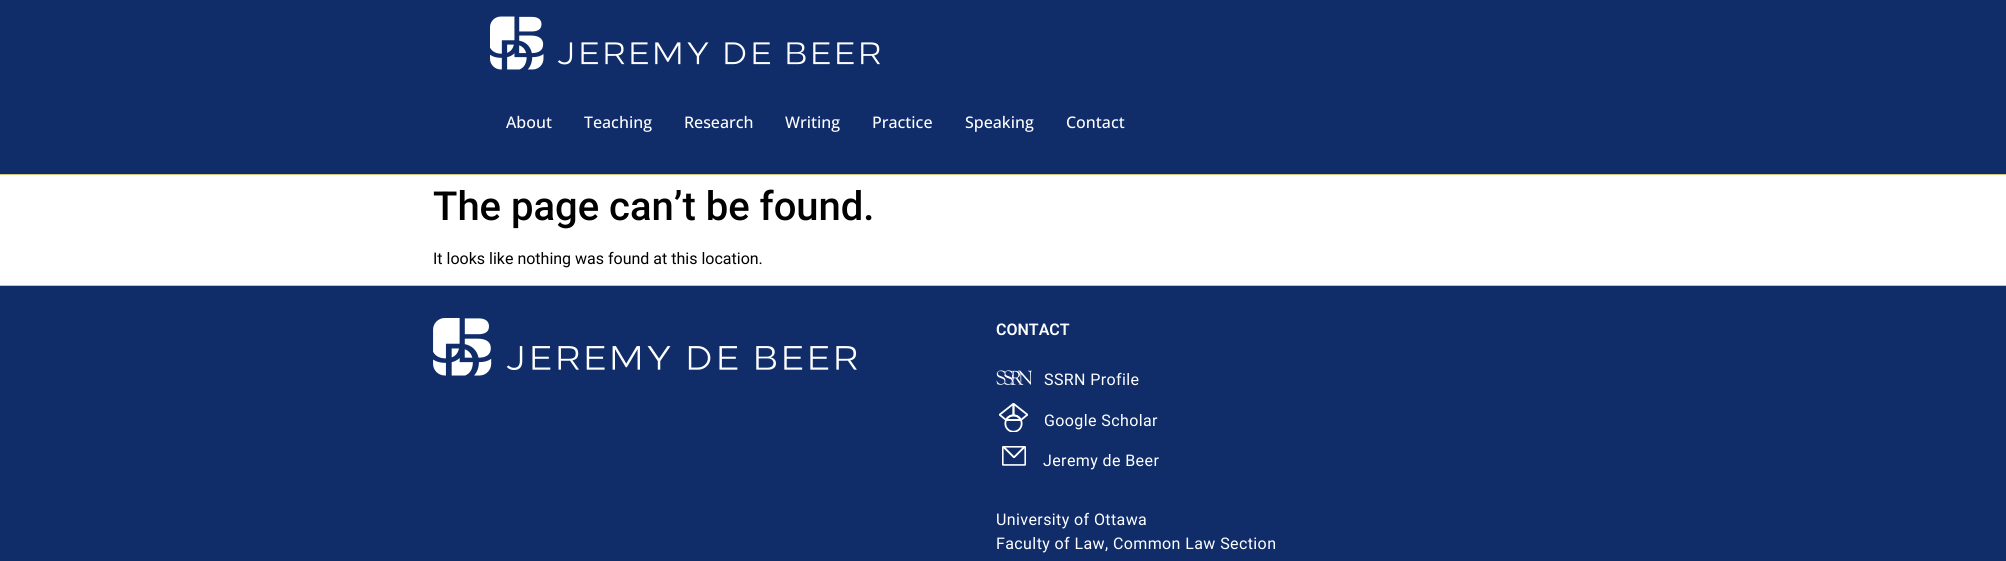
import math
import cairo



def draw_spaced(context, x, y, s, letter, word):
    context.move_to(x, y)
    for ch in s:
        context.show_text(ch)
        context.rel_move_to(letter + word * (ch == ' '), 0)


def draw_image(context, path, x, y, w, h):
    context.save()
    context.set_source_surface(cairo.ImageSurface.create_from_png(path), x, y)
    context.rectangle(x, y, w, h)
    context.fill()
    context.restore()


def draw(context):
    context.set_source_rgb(1, 1, 1)
    context.paint()
    context.set_source_rgb(16 / 255, 45 / 255, 106 / 255)
    context.rectangle(0, 0, 2006, 174)
    context.fill()
    context.set_source_rgb(216 / 255, 196 / 255, 123 / 255)
    context.rectangle(0, 174, 2006, 1)
    context.fill()
    draw_image(context, "images/1.png", 490, 16, 390, 54)
    context.set_source_rgb(16 / 255, 45 / 255, 106 / 255)
    context.rectangle(0, 286, 2006, 275)
    context.fill()
    context.set_source_rgb(216 / 255, 196 / 255, 123 / 255)
    context.rectangle(0, 285, 2006, 1)
    context.fill()
    draw_image(context, "images/2.png", 433, 318, 424, 58)
    draw_image(context, "images/3.png", 996, 370, 37, 15)
    draw_image(context, "images/4.png", 999, 403, 29, 29)
    draw_image(context, "images/5.png", 1002, 446, 24, 20)
    context.select_font_face("Open Sans Medium")
    context.set_font_size(16)
    context.set_source_rgb(1, 1, 1)
    context.move_to(506, 128)
    context.show_text("About")
    context.move_to(584, 128)
    context.show_text("Teaching")
    context.move_to(684, 128)
    context.show_text("Research")
    context.move_to(785, 128)
    context.show_text("Writing")
    context.move_to(872, 128)
    context.show_text("Practice")
    context.move_to(965, 128)
    context.show_text("Speaking")
    context.move_to(1066, 128)
    context.show_text("Contact")
    context.select_font_face("Roboto Medium")
    context.set_font_size(40)
    context.set_source_rgb(0, 0, 0)
    context.move_to(433, 220)
    context.show_text("The page can’t be found.")
    context.select_font_face("Roboto")
    context.set_font_size(16)
    context.move_to(433, 264)
    context.show_text("It looks like nothing was found at this location.")
    context.select_font_face("Roboto SemiBold")
    context.set_source_rgb(1, 1, 1)
    context.move_to(996, 335)
    context.show_text("CONTACT")
    context.select_font_face("Roboto")
    draw_spaced(context, 1044, 385, "SSRN Profile", 0.4, 0)
    draw_spaced(context, 1044, 426, "Google Scholar", 0.4, 0)
    draw_spaced(context, 1043, 466, "Jeremy de Beer", 0.4, 0)
    draw_spaced(context, 996, 525, "University of Ottawa", 0.4, 0)
    draw_spaced(context, 996, 549, "Faculty of Law, Common Law Section", 0.4, 0)


surface = cairo.ImageSurface(cairo.Format.RGB24, 2006, 561)
context = cairo.Context(surface)
options = cairo.FontOptions()
options.set_hint_metrics(cairo.HintMetrics.OFF)
options.set_hint_style(cairo.HintStyle.NONE)
context.set_font_options(options)
context.set_miter_limit(4)
draw(context)
surface.write_to_png("out.png")
